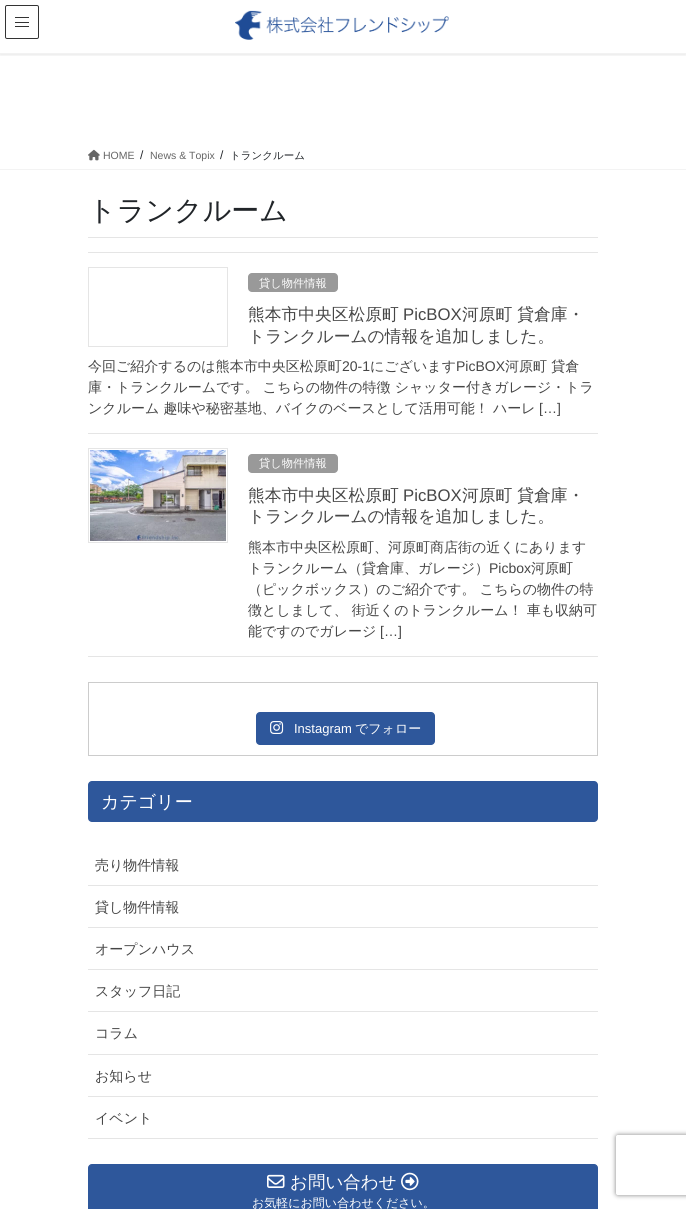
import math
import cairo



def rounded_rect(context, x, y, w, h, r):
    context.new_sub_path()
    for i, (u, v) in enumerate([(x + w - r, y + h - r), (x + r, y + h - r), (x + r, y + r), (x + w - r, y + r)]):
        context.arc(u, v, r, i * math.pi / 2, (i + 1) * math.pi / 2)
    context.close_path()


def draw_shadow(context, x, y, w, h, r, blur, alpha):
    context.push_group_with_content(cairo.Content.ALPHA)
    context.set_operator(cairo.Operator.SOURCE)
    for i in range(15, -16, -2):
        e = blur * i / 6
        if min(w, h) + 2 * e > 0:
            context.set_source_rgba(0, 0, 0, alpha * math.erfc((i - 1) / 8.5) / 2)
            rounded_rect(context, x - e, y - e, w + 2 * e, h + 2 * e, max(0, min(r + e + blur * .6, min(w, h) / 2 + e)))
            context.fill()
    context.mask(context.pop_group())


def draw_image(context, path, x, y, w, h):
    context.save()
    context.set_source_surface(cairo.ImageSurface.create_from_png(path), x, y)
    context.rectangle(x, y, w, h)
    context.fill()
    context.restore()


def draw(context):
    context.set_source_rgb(1, 1, 1)
    context.paint()
    context.save()
    context.rectangle(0, 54, 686, 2)
    context.clip()
    context.set_source_rgb(0, 0, 0)
    draw_shadow(context, 0, 1, 686, 54, 0, 1.5, 0.1)
    context.restore()
    context.set_source_rgb(242 / 255, 242 / 255, 242 / 255)
    context.rectangle(0, 53, 686, 1)
    context.fill()
    draw_image(context, "images/1.png", 235, 10, 214, 30)
    context.set_source_rgb(51 / 255, 51 / 255, 51 / 255)
    context.rectangle(15, 17, 14, 1)
    context.fill()
    context.rectangle(15, 22, 14, 1)
    context.fill()
    context.rectangle(15, 26, 14, 1)
    context.fill()
    rounded_rect(context, 5.5, 5.5, 33, 33, 1.5)
    context.set_line_width(1)
    context.stroke()
    context.set_source_rgb(243 / 255, 243 / 255, 243 / 255)
    context.rectangle(0, 169, 686, 1)
    context.fill()
    draw_image(context, "images/2.png", 88, 149, 12, 12)
    context.set_source_rgb(229 / 255, 229 / 255, 229 / 255)
    context.rectangle(88, 237, 510, 1)
    context.fill()
    context.rectangle(88, 252, 510, 1)
    context.fill()
    context.rectangle(88, 433, 510, 1)
    context.fill()
    context.rectangle(88.5, 267.5, 139, 79)
    context.stroke()
    context.set_source_rgb(153 / 255, 153 / 255, 153 / 255)
    rounded_rect(context, 248, 273, 90, 19, 4)
    context.fill()
    context.set_source_rgb(229 / 255, 229 / 255, 229 / 255)
    context.rectangle(88, 656, 510, 1)
    context.fill()
    context.rectangle(88.5, 448.5, 139, 94)
    context.stroke()
    draw_image(context, "images/3.png", 90, 450, 136, 91)
    context.set_source_rgb(153 / 255, 153 / 255, 153 / 255)
    rounded_rect(context, 248, 454, 90, 19, 4)
    context.fill()
    context.rectangle(88.5, 682.5, 509, 73)
    context.set_source_rgb(204 / 255, 204 / 255, 204 / 255)
    context.stroke()
    context.set_source_rgb(46 / 255, 87 / 255, 155 / 255)
    rounded_rect(context, 256, 712, 179, 33, 4)
    context.fill()
    draw_image(context, "images/4.png", 270, 721, 14, 13)
    rounded_rect(context, 88, 781, 510, 41, 4)
    context.fill()
    context.set_source_rgb(229 / 255, 229 / 255, 229 / 255)
    context.rectangle(88, 885, 510, 1)
    context.fill()
    context.rectangle(88, 927, 510, 1)
    context.fill()
    context.rectangle(88, 969, 510, 1)
    context.fill()
    context.rectangle(88, 1011, 510, 1)
    context.fill()
    context.rectangle(88, 1054, 510, 1)
    context.fill()
    context.rectangle(88, 1096, 510, 1)
    context.fill()
    context.rectangle(88, 1138, 510, 1)
    context.fill()
    context.set_source_rgb(46 / 255, 87 / 255, 155 / 255)
    rounded_rect(context, 88.5, 1164.5, 509, 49, 3.5)
    context.fill_preserve()
    context.stroke()
    draw_image(context, "images/5.png", 267, 1174, 18, 14)
    draw_image(context, "images/6.png", 401, 1172, 18, 19)
    context.save()
    context.set_fill_rule(cairo.FillRule.EVEN_ODD)
    context.new_path()
    context.move_to(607, 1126)
    context.line_to(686, 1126)
    context.line_to(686, 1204)
    context.line_to(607, 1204)
    context.close_path()
    context.move_to(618, 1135)
    context.line_to(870, 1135)
    context.curve_to(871, 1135, 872, 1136, 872, 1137)
    context.line_to(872, 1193)
    context.curve_to(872, 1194, 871, 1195, 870, 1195)
    context.line_to(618, 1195)
    context.curve_to(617, 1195, 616, 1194, 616, 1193)
    context.line_to(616, 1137)
    context.curve_to(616, 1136, 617, 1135, 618, 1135)
    context.close_path()
    context.clip()
    context.set_source_rgb(128 / 255, 128 / 255, 128 / 255)
    draw_shadow(context, 616, 1135, 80, 60, 2, 2.5, 1)
    context.restore()
    context.select_font_face("Liberation Sans")
    context.set_font_size(10.5)
    context.set_source_rgb(102 / 255, 102 / 255, 102 / 255)
    context.move_to(103, 159)
    context.show_text("HOME")
    context.set_font_size(12)
    context.set_source_rgb(33 / 255, 37 / 255, 41 / 255)
    context.move_to(140, 159)
    context.show_text("/")
    context.set_font_size(10.5)
    context.set_source_rgb(102 / 255, 102 / 255, 102 / 255)
    context.move_to(150, 159)
    context.show_text("News & Topix")
    context.set_font_size(12)
    context.set_source_rgb(33 / 255, 37 / 255, 41 / 255)
    context.move_to(220, 159)
    context.show_text("/")
    context.select_font_face("WenQuanYi Zen Hei Medium")
    context.set_font_size(10.5)
    context.move_to(230, 159)
    context.show_text("トランクルーム")
    context.set_font_size(28)
    context.move_to(88, 220)
    context.show_text("トランクルーム")
    context.set_font_size(11.25)
    context.set_source_rgb(1, 1, 1)
    context.move_to(259, 287)
    context.show_text("貸し物件情報")
    context.set_font_size(16.75)
    context.set_source_rgb(70 / 255, 70 / 255, 70 / 255)
    context.move_to(248, 320)
    context.show_text("熊本市中央区松原町")
    context.select_font_face("Liberation Sans")
    context.move_to(403, 320)
    context.show_text("PicBOX")
    context.select_font_face("WenQuanYi Zen Hei Medium")
    context.move_to(462, 320)
    context.show_text("河原町 貸倉庫・")
    context.move_to(248, 342)
    context.show_text("トランクルームの情報を追加しました。")
    context.set_font_size(14)
    context.move_to(88, 371)
    context.show_text("今回ご紹介するのは熊本市中央区松原町")
    context.select_font_face("Liberation Sans")
    context.move_to(342, 371)
    context.show_text("20-1")
    context.select_font_face("WenQuanYi Zen Hei Medium")
    context.move_to(370, 371)
    context.show_text("にございます")
    context.select_font_face("Liberation Sans")
    context.move_to(456, 371)
    context.show_text("PicBOX")
    context.select_font_face("WenQuanYi Zen Hei Medium")
    context.move_to(505, 371)
    context.show_text("河原町 貸倉")
    context.move_to(88, 392)
    context.show_text("庫・トランクルームです。 こちらの物件の特徴 シャッター付きガレージ・トラ")
    context.move_to(88, 413)
    context.show_text("ンクルーム 趣味や秘密基地、バイクのベースとして活用可能！ ハーレ")
    context.select_font_face("Liberation Sans")
    context.move_to(539, 413)
    context.show_text("[…]")
    context.select_font_face("WenQuanYi Zen Hei Medium")
    context.set_font_size(11.25)
    context.set_source_rgb(1, 1, 1)
    context.move_to(259, 467)
    context.show_text("貸し物件情報")
    context.set_font_size(16.75)
    context.set_source_rgb(70 / 255, 70 / 255, 70 / 255)
    context.move_to(248, 501)
    context.show_text("熊本市中央区松原町")
    context.select_font_face("Liberation Sans")
    context.move_to(403, 501)
    context.show_text("PicBOX")
    context.select_font_face("WenQuanYi Zen Hei Medium")
    context.move_to(462, 501)
    context.show_text("河原町 貸倉庫・")
    context.move_to(248, 522)
    context.show_text("トランクルームの情報を追加しました。")
    context.set_font_size(14)
    context.move_to(248, 552)
    context.show_text("熊本市中央区松原町、河原町商店街の近くにあります")
    context.move_to(248, 573)
    context.show_text("トランクルーム（貸倉庫、ガレージ）")
    context.select_font_face("Liberation Sans")
    context.move_to(489, 573)
    context.show_text("Picbox")
    context.select_font_face("WenQuanYi Zen Hei Medium")
    context.move_to(531, 573)
    context.show_text("河原町")
    context.move_to(248, 594)
    context.show_text("（ピックボックス）のご紹介です。 こちらの物件の特")
    context.move_to(248, 615)
    context.show_text("徴としまして、 街近くのトランクルーム！ 車も収納可")
    context.move_to(248, 636)
    context.show_text("能ですのでガレージ")
    context.select_font_face("Liberation Sans")
    context.move_to(380, 636)
    context.show_text("[…]")
    context.set_font_size(13)
    context.set_source_rgb(1, 1, 1)
    context.move_to(294, 733)
    context.show_text("Instagram")
    context.select_font_face("WenQuanYi Zen Hei Medium")
    context.move_to(355, 733)
    context.show_text("でフォロー")
    context.set_font_size(18)
    context.move_to(101, 808)
    context.show_text("カテゴリー")
    context.set_font_size(14)
    context.set_source_rgb(70 / 255, 70 / 255, 70 / 255)
    context.move_to(95, 870)
    context.show_text("売り物件情報")
    context.move_to(95, 912)
    context.show_text("貸し物件情報")
    context.move_to(95, 954)
    context.show_text("オープンハウス")
    context.move_to(95, 996)
    context.show_text("スタッフ日記")
    context.move_to(95, 1038)
    context.show_text("コラム")
    context.move_to(95, 1081)
    context.show_text("お知らせ")
    context.move_to(95, 1123)
    context.show_text("イベント")
    context.set_font_size(17.5)
    context.set_source_rgb(1, 1, 1)
    context.move_to(290, 1188)
    context.show_text("お問い合わせ")
    context.set_font_size(12)
    context.move_to(252, 1207)
    context.show_text("お気軽にお問い合わせください。")


surface = cairo.ImageSurface(cairo.Format.RGB24, 686, 1209)
context = cairo.Context(surface)
options = cairo.FontOptions()
options.set_hint_metrics(cairo.HintMetrics.OFF)
options.set_hint_style(cairo.HintStyle.NONE)
context.set_font_options(options)
context.set_miter_limit(4)
draw(context)
surface.write_to_png("out.png")
